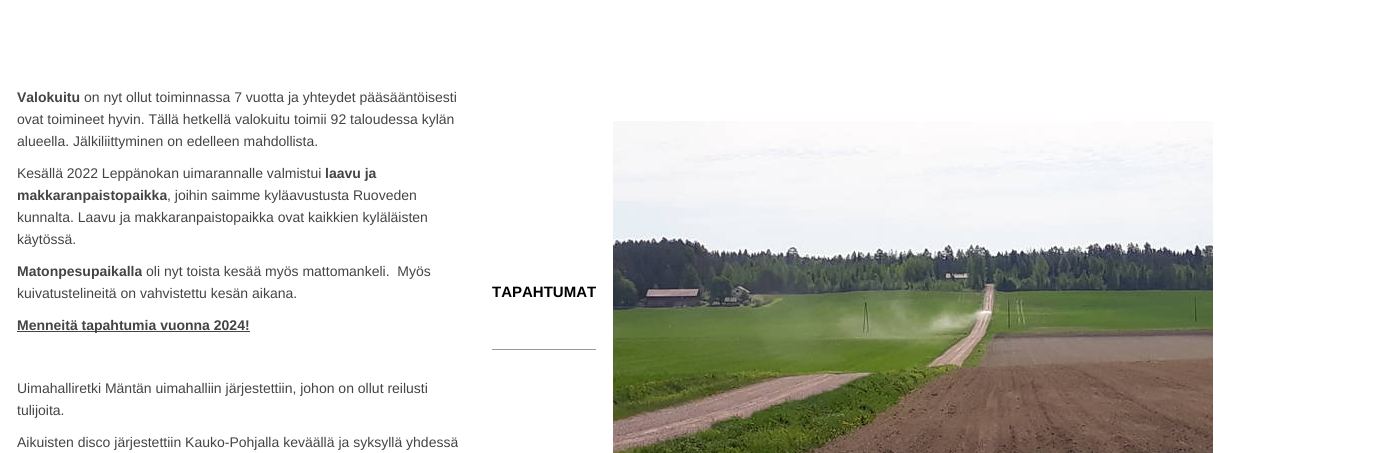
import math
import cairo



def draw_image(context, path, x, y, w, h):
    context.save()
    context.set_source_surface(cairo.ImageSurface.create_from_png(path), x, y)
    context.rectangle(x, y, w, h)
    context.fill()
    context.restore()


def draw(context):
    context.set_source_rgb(1, 1, 1)
    context.paint()
    context.set_source_rgb(68 / 255, 68 / 255, 68 / 255)
    context.rectangle(17, 331, 233, 1)
    context.fill()
    context.set_source_rgb(153 / 255, 153 / 255, 153 / 255)
    context.rectangle(492, 349, 104, 1)
    context.fill()
    draw_image(context, "images/1.png", 613, 121, 600, 332)
    context.select_font_face("Liberation Sans", cairo.FontSlant.NORMAL, cairo.FontWeight.BOLD)
    context.set_font_size(14)
    context.set_source_rgb(68 / 255, 68 / 255, 68 / 255)
    context.move_to(17, 102)
    context.show_text("Valokuitu")
    context.select_font_face("Liberation Sans")
    context.move_to(84, 102)
    context.show_text("on nyt ollut toiminnassa 7 vuotta ja yhteydet pääsääntöisesti")
    context.move_to(17, 124)
    context.show_text("ovat toimineet hyvin. Tällä hetkellä valokuitu toimii 92 taloudessa kylän")
    context.move_to(17, 146)
    context.show_text("alueella. Jälkiliittyminen on edelleen mahdollista.")
    context.move_to(17, 178)
    context.show_text("Kesällä 2022 Leppänokan uimarannalle valmistui")
    context.select_font_face("Liberation Sans", cairo.FontSlant.NORMAL, cairo.FontWeight.BOLD)
    context.move_to(325, 178)
    context.show_text("laavu ja")
    context.move_to(17, 200)
    context.show_text("makkaranpaistopaikka")
    context.select_font_face("Liberation Sans")
    context.move_to(167, 200)
    context.show_text(", joihin saimme kyläavustusta Ruoveden")
    context.move_to(17, 222)
    context.show_text("kunnalta. Laavu ja makkaranpaistopaikka ovat kaikkien kyläläisten")
    context.move_to(17, 244)
    context.show_text("käytössä.")
    context.select_font_face("Liberation Sans", cairo.FontSlant.NORMAL, cairo.FontWeight.BOLD)
    context.move_to(17, 276)
    context.show_text("Matonpesupaikalla")
    context.select_font_face("Liberation Sans")
    context.move_to(146, 276)
    context.show_text("oli nyt toista kesää myös mattomankeli.  Myös")
    context.move_to(17, 298)
    context.show_text("kuivatustelineitä on vahvistettu kesän aikana.")
    context.select_font_face("Liberation Sans", cairo.FontSlant.NORMAL, cairo.FontWeight.BOLD)
    context.move_to(17, 330)
    context.show_text("Menneitä tapahtumia vuonna 2024!")
    context.select_font_face("Liberation Sans")
    context.move_to(17, 393)
    context.show_text("Uimahalliretki Mäntän uimahalliin järjestettiin, johon on ollut reilusti")
    context.move_to(17, 415)
    context.show_text("tulijoita.")
    context.move_to(17, 447)
    context.show_text("Aikuisten disco järjestettiin Kauko-Pohjalla keväällä ja syksyllä yhdessä")
    context.select_font_face("Liberation Sans", cairo.FontSlant.NORMAL, cairo.FontWeight.BOLD)
    context.set_font_size(15)
    context.set_source_rgb(0, 0, 0)
    context.move_to(492, 297)
    context.show_text("TAPAHTUMAT")


surface = cairo.ImageSurface(cairo.Format.RGB24, 1383, 453)
context = cairo.Context(surface)
options = cairo.FontOptions()
options.set_hint_metrics(cairo.HintMetrics.OFF)
options.set_hint_style(cairo.HintStyle.NONE)
context.set_font_options(options)
context.set_miter_limit(4)
draw(context)
surface.write_to_png("out.png")
